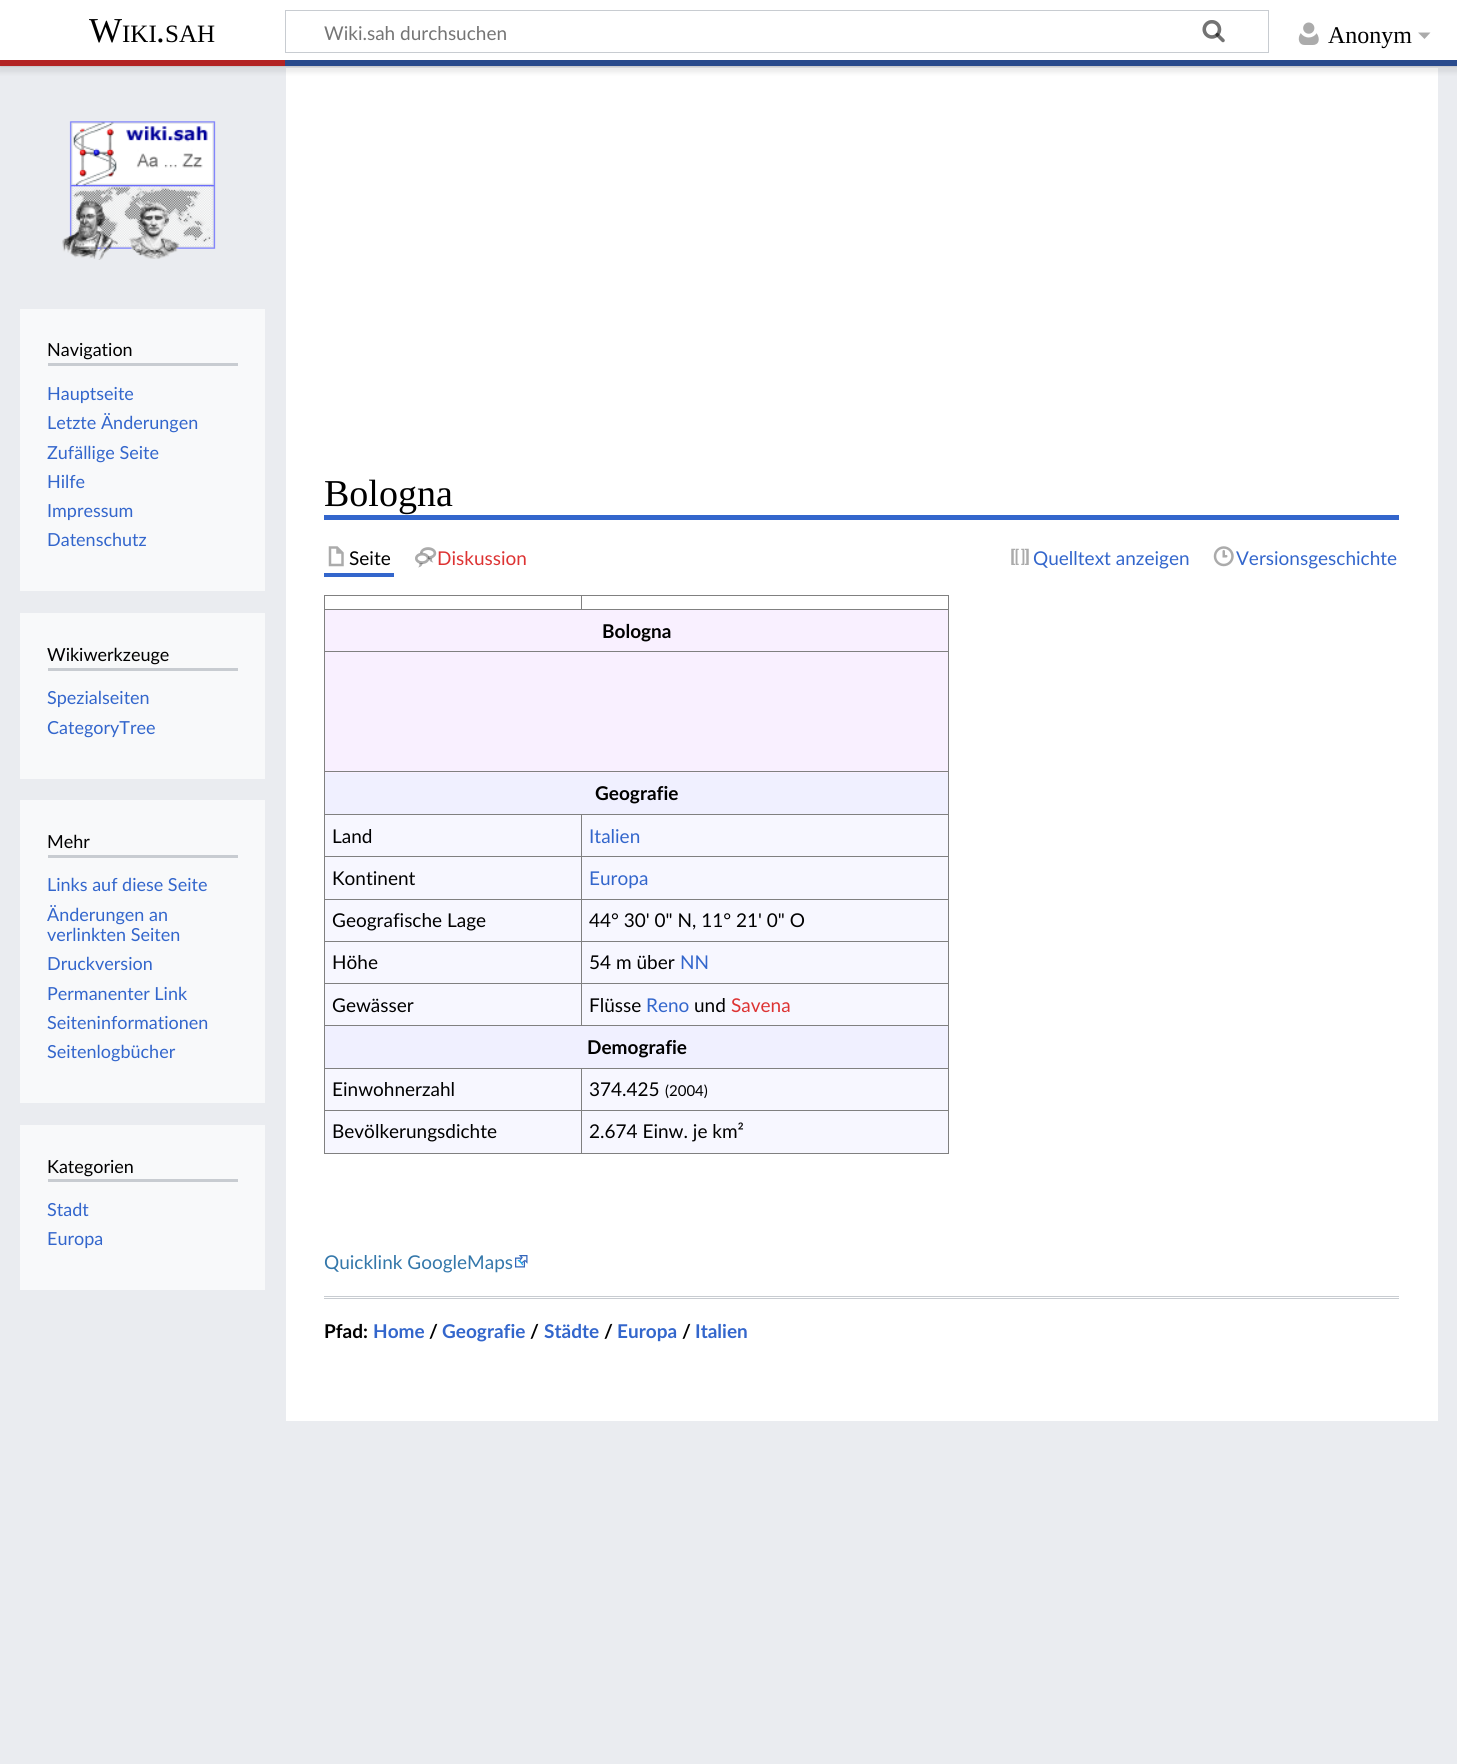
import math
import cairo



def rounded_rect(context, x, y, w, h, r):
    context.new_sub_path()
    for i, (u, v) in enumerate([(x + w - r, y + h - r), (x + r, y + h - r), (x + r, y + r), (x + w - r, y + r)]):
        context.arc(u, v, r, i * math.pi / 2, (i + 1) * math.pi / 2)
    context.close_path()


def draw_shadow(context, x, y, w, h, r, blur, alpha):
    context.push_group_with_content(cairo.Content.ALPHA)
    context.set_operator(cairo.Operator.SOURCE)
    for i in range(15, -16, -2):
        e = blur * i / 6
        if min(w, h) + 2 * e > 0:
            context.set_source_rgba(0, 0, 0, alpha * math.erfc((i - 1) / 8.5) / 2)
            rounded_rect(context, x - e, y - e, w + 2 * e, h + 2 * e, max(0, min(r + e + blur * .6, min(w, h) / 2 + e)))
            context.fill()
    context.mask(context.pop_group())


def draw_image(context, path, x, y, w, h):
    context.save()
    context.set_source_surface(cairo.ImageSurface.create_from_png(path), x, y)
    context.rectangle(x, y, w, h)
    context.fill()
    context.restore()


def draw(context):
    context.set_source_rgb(234 / 255, 236 / 255, 240 / 255)
    context.paint()
    context.set_source_rgb(1, 1, 1)
    context.rectangle(286, 68, 1152, 1353)
    context.fill()
    context.set_source_rgb(0, 0, 0)
    draw_shadow(context, 0, 60, 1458, 6, 0, 1, 0.2)
    draw_shadow(context, -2, 61, 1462, 12, 0, 2, 0.07)
    context.set_source_rgb(1, 1, 1)
    context.rectangle(0, 0, 1457, 60)
    context.fill()
    context.rectangle(285.5, 10.5, 983, 42)
    context.set_source_rgb(200 / 255, 204 / 255, 209 / 255)
    context.set_line_width(1)
    context.stroke()
    draw_image(context, "images/1.png", 1202, 20, 23, 23)
    draw_image(context, "images/2.png", 1202, 20, 23, 23)
    draw_image(context, "images/3.png", 1298, 22, 21, 23)
    context.set_source_rgb(171 / 255, 171 / 255, 171 / 255)
    context.new_path()
    context.move_to(1430.5, 32.5)
    context.line_to(1424.5, 39)
    context.line_to(1418, 32.5)
    context.close_path()
    context.fill()
    context.set_source_rgb(179 / 255, 36 / 255, 36 / 255)
    context.rectangle(0, 60, 285, 6)
    context.fill()
    context.set_source_rgb(42 / 255, 75 / 255, 141 / 255)
    context.rectangle(285, 60, 1172, 6)
    context.fill()
    draw_image(context, "images/4.png", 61, 121, 155, 139)
    context.set_source_rgb(248 / 255, 249 / 255, 250 / 255)
    context.rectangle(20, 309, 245, 282)
    context.fill()
    context.set_source_rgb(200 / 255, 204 / 255, 209 / 255)
    context.rectangle(48, 363, 190, 3)
    context.fill()
    context.set_source_rgb(248 / 255, 249 / 255, 250 / 255)
    context.rectangle(20, 613, 245, 166)
    context.fill()
    context.set_source_rgb(200 / 255, 204 / 255, 209 / 255)
    context.rectangle(48, 668, 190, 3)
    context.fill()
    context.set_source_rgb(51 / 255, 102 / 255, 204 / 255)
    context.rectangle(324, 515, 1075, 5)
    context.fill()
    context.rectangle(324, 573, 70, 4)
    context.fill()
    draw_image(context, "images/5.png", 328, 546, 16, 21)
    draw_image(context, "images/6.png", 415, 547, 22, 21)
    draw_image(context, "images/7.png", 1011, 548, 18, 17)
    draw_image(context, "images/8.png", 1213, 546, 21, 21)
    context.set_source_rgb(128 / 255, 128 / 255, 128 / 255)
    context.rectangle(324, 595, 625, 1)
    context.fill()
    context.rectangle(948, 595, 1, 559)
    context.fill()
    context.rectangle(324, 1153, 625, 1)
    context.fill()
    context.rectangle(324, 595, 1, 559)
    context.fill()
    context.rectangle(324, 609, 625, 1)
    context.fill()
    context.rectangle(581, 595, 1, 15)
    context.fill()
    context.set_source_rgb(249 / 255, 240 / 255, 1)
    context.rectangle(325, 610, 623, 41)
    context.fill()
    context.rectangle(325, 652, 623, 121)
    context.fill()
    context.set_source_rgb(128 / 255, 128 / 255, 128 / 255)
    context.rectangle(324, 651, 625, 1)
    context.fill()
    context.set_source_rgb(240 / 255, 240 / 255, 1)
    context.rectangle(325, 773, 623, 41)
    context.fill()
    context.set_source_rgb(128 / 255, 128 / 255, 128 / 255)
    context.rectangle(324, 771, 625, 1)
    context.fill()
    context.set_source_rgb(247 / 255, 247 / 255, 1)
    context.rectangle(325, 815, 623, 41)
    context.fill()
    context.set_source_rgb(128 / 255, 128 / 255, 128 / 255)
    context.rectangle(581, 814, 368, 1)
    context.fill()
    context.set_source_rgb(247 / 255, 247 / 255, 1)
    context.rectangle(325, 857, 623, 42)
    context.fill()
    context.set_source_rgb(128 / 255, 128 / 255, 128 / 255)
    context.rectangle(581, 856, 368, 1)
    context.fill()
    context.rectangle(581, 899, 368, 1)
    context.fill()
    context.set_source_rgb(247 / 255, 247 / 255, 1)
    context.rectangle(325, 900, 623, 41)
    context.fill()
    context.rectangle(325, 942, 623, 41)
    context.fill()
    context.set_source_rgb(128 / 255, 128 / 255, 128 / 255)
    context.rectangle(581, 941, 368, 1)
    context.fill()
    context.rectangle(581, 983, 368, 1)
    context.fill()
    context.set_source_rgb(247 / 255, 247 / 255, 1)
    context.rectangle(325, 984, 623, 41)
    context.fill()
    context.set_source_rgb(128 / 255, 128 / 255, 128 / 255)
    context.rectangle(324, 1025, 625, 1)
    context.fill()
    context.rectangle(581, 983, 1, 43)
    context.fill()
    context.rectangle(324, 983, 259, 1)
    context.fill()
    context.rectangle(581, 941, 1, 43)
    context.fill()
    context.rectangle(324, 941, 259, 1)
    context.fill()
    context.rectangle(581, 899, 1, 44)
    context.fill()
    context.rectangle(324, 899, 259, 1)
    context.fill()
    context.rectangle(581, 856, 1, 44)
    context.fill()
    context.rectangle(324, 856, 259, 1)
    context.fill()
    context.rectangle(581, 814, 1, 44)
    context.fill()
    context.rectangle(324, 814, 259, 1)
    context.fill()
    context.set_source_rgb(240 / 255, 240 / 255, 1)
    context.rectangle(325, 1026, 623, 42)
    context.fill()
    context.set_source_rgb(247 / 255, 247 / 255, 1)
    context.rectangle(325, 1069, 623, 41)
    context.fill()
    context.set_source_rgb(128 / 255, 128 / 255, 128 / 255)
    context.rectangle(581, 1068, 368, 1)
    context.fill()
    context.rectangle(581, 1110, 368, 1)
    context.fill()
    context.set_source_rgb(247 / 255, 247 / 255, 1)
    context.rectangle(325, 1111, 623, 42)
    context.fill()
    context.set_source_rgb(128 / 255, 128 / 255, 128 / 255)
    context.rectangle(581, 1110, 1, 44)
    context.fill()
    context.rectangle(324, 1110, 259, 1)
    context.fill()
    context.rectangle(581, 1068, 1, 43)
    context.fill()
    context.rectangle(324, 1068, 259, 1)
    context.fill()
    draw_image(context, "images/9.png", 515, 1255, 13, 13)
    context.set_source_rgb(200 / 255, 204 / 255, 209 / 255)
    context.rectangle(324, 1296, 1075, 1)
    context.fill()
    context.rectangle(324, 1298, 1075, 1)
    context.fill()
    context.set_source_rgb(248 / 255, 249 / 255, 250 / 255)
    context.rectangle(20, 800, 245, 303)
    context.fill()
    context.set_source_rgb(200 / 255, 204 / 255, 209 / 255)
    context.rectangle(48, 855, 190, 3)
    context.fill()
    context.set_source_rgb(248 / 255, 249 / 255, 250 / 255)
    context.rectangle(20, 1125, 245, 165)
    context.fill()
    context.set_source_rgb(200 / 255, 204 / 255, 209 / 255)
    context.rectangle(48, 1179, 190, 3)
    context.fill()
    context.select_font_face("Liberation Serif")
    context.set_font_size(35)
    context.set_source_rgb(0, 0, 0)
    context.move_to(89, 42)
    context.show_text("W")
    context.set_font_size(25)
    context.move_to(122, 42)
    context.show_text("IKI")
    context.set_font_size(35)
    context.move_to(156, 42)
    context.show_text(".")
    context.set_font_size(25)
    context.move_to(165, 42)
    context.show_text("SAH")
    context.select_font_face("Lato")
    context.set_font_size(19)
    context.set_source_rgb(117 / 255, 117 / 255, 117 / 255)
    context.move_to(324, 40)
    context.show_text("Wiki.sah durchsuchen")
    context.select_font_face("Liberation Serif")
    context.set_font_size(24)
    context.set_source_rgb(0, 0, 0)
    context.move_to(1328, 43)
    context.show_text("Anonym")
    context.select_font_face("Lato")
    context.set_font_size(18)
    context.move_to(47, 356)
    context.show_text("Navigation")
    context.set_source_rgb(51 / 255, 102 / 255, 204 / 255)
    context.move_to(47, 400)
    context.show_text("Hauptseite")
    context.move_to(47, 429)
    context.show_text("Letzte Änderungen")
    context.move_to(47, 459)
    context.show_text("Zufällige Seite")
    context.move_to(47, 488)
    context.show_text("Hilfe")
    context.move_to(47, 517)
    context.show_text("Impressum")
    context.move_to(47, 546)
    context.show_text("Datenschutz")
    context.set_source_rgb(0, 0, 0)
    context.move_to(47, 661)
    context.show_text("Wikiwerkzeuge")
    context.set_source_rgb(51 / 255, 102 / 255, 204 / 255)
    context.move_to(47, 704)
    context.show_text("Spezialseiten")
    context.move_to(47, 734)
    context.show_text("CategoryTree")
    context.select_font_face("Liberation Serif")
    context.set_font_size(38)
    context.set_source_rgb(0, 0, 0)
    context.move_to(324, 506)
    context.show_text("Bologna")
    context.select_font_face("Lato")
    context.set_font_size(19)
    context.move_to(349, 565)
    context.show_text("Seite")
    context.set_source_rgb(221 / 255, 51 / 255, 51 / 255)
    context.move_to(437, 565)
    context.show_text("Diskussion")
    context.set_source_rgb(51 / 255, 102 / 255, 204 / 255)
    context.move_to(1033, 565)
    context.show_text("Quelltext anzeigen")
    context.move_to(1236, 565)
    context.show_text("Versionsgeschichte")
    context.select_font_face("Lato", cairo.FontSlant.NORMAL, cairo.FontWeight.BOLD)
    context.set_source_rgb(0, 0, 0)
    context.move_to(602, 638)
    context.show_text("Bologna")
    context.move_to(595, 800)
    context.show_text("Geografie")
    context.select_font_face("Lato")
    context.move_to(332, 843)
    context.show_text("Land")
    context.set_source_rgb(51 / 255, 102 / 255, 204 / 255)
    context.move_to(589, 843)
    context.show_text("Italien")
    context.set_source_rgb(0, 0, 0)
    context.move_to(332, 885)
    context.show_text("Kontinent")
    context.set_source_rgb(51 / 255, 102 / 255, 204 / 255)
    context.move_to(589, 885)
    context.show_text("Europa")
    context.set_source_rgb(0, 0, 0)
    context.move_to(332, 927)
    context.show_text("Geografische Lage")
    context.move_to(589, 927)
    context.show_text("44° 30' 0\" N, 11° 21' 0\" O")
    context.move_to(332, 969)
    context.show_text("Höhe")
    context.move_to(589, 969)
    context.show_text("54 m über")
    context.set_source_rgb(51 / 255, 102 / 255, 204 / 255)
    context.move_to(680, 969)
    context.show_text("NN")
    context.set_source_rgb(0, 0, 0)
    context.move_to(332, 1012)
    context.show_text("Gewässer")
    context.move_to(589, 1012)
    context.show_text("Flüsse")
    context.set_source_rgb(51 / 255, 102 / 255, 204 / 255)
    context.move_to(646, 1012)
    context.show_text("Reno")
    context.set_source_rgb(0, 0, 0)
    context.move_to(694, 1012)
    context.show_text("und")
    context.set_source_rgb(221 / 255, 51 / 255, 51 / 255)
    context.move_to(731, 1012)
    context.show_text("Savena")
    context.select_font_face("Lato", cairo.FontSlant.NORMAL, cairo.FontWeight.BOLD)
    context.set_source_rgb(0, 0, 0)
    context.move_to(587, 1054)
    context.show_text("Demografie")
    context.select_font_face("Lato")
    context.move_to(332, 1096)
    context.show_text("Einwohnerzahl")
    context.move_to(589, 1096)
    context.show_text("374.425")
    context.set_font_size(15)
    context.move_to(665, 1096)
    context.show_text("(2004)")
    context.set_font_size(19)
    context.move_to(332, 1138)
    context.show_text("Bevölkerungsdichte")
    context.move_to(589, 1138)
    context.show_text("2.674 Einw. je km²")
    context.set_source_rgb(51 / 255, 119 / 255, 170 / 255)
    context.move_to(324, 1269)
    context.show_text("Quicklink GoogleMaps")
    context.select_font_face("Lato", cairo.FontSlant.NORMAL, cairo.FontWeight.BOLD)
    context.set_source_rgb(0, 0, 0)
    context.move_to(324, 1338)
    context.show_text("Pfad:")
    context.set_source_rgb(51 / 255, 102 / 255, 204 / 255)
    context.move_to(373, 1338)
    context.show_text("Home")
    context.set_source_rgb(0, 0, 0)
    context.move_to(429, 1338)
    context.show_text("/")
    context.set_source_rgb(51 / 255, 102 / 255, 204 / 255)
    context.move_to(442, 1338)
    context.show_text("Geografie")
    context.set_source_rgb(0, 0, 0)
    context.move_to(530, 1338)
    context.show_text("/")
    context.set_source_rgb(51 / 255, 102 / 255, 204 / 255)
    context.move_to(544, 1338)
    context.show_text("Städte")
    context.set_source_rgb(0, 0, 0)
    context.move_to(604, 1338)
    context.show_text("/")
    context.set_source_rgb(51 / 255, 102 / 255, 204 / 255)
    context.move_to(617, 1338)
    context.show_text("Europa")
    context.set_source_rgb(0, 0, 0)
    context.move_to(682, 1338)
    context.show_text("/")
    context.set_source_rgb(51 / 255, 102 / 255, 204 / 255)
    context.move_to(695, 1338)
    context.show_text("Italien")
    context.select_font_face("Lato")
    context.set_font_size(18)
    context.set_source_rgb(0, 0, 0)
    context.move_to(47, 848)
    context.show_text("Mehr")
    context.set_source_rgb(51 / 255, 102 / 255, 204 / 255)
    context.move_to(47, 891)
    context.show_text("Links auf diese Seite")
    context.move_to(47, 921)
    context.show_text("Änderungen an")
    context.move_to(47, 941)
    context.show_text("verlinkten Seiten")
    context.move_to(47, 970)
    context.show_text("Druckversion")
    context.move_to(47, 1000)
    context.show_text("Permanenter Link")
    context.move_to(47, 1029)
    context.show_text("Seiteninformationen")
    context.move_to(47, 1058)
    context.show_text("Seitenlogbücher")
    context.set_source_rgb(0, 0, 0)
    context.move_to(47, 1173)
    context.show_text("Kategorien")
    context.set_source_rgb(51 / 255, 102 / 255, 204 / 255)
    context.move_to(47, 1216)
    context.show_text("Stadt")
    context.move_to(47, 1245)
    context.show_text("Europa")


surface = cairo.ImageSurface(cairo.Format.RGB24, 1457, 1764)
context = cairo.Context(surface)
options = cairo.FontOptions()
options.set_hint_metrics(cairo.HintMetrics.OFF)
options.set_hint_style(cairo.HintStyle.NONE)
context.set_font_options(options)
context.set_miter_limit(4)
draw(context)
surface.write_to_png("out.png")
